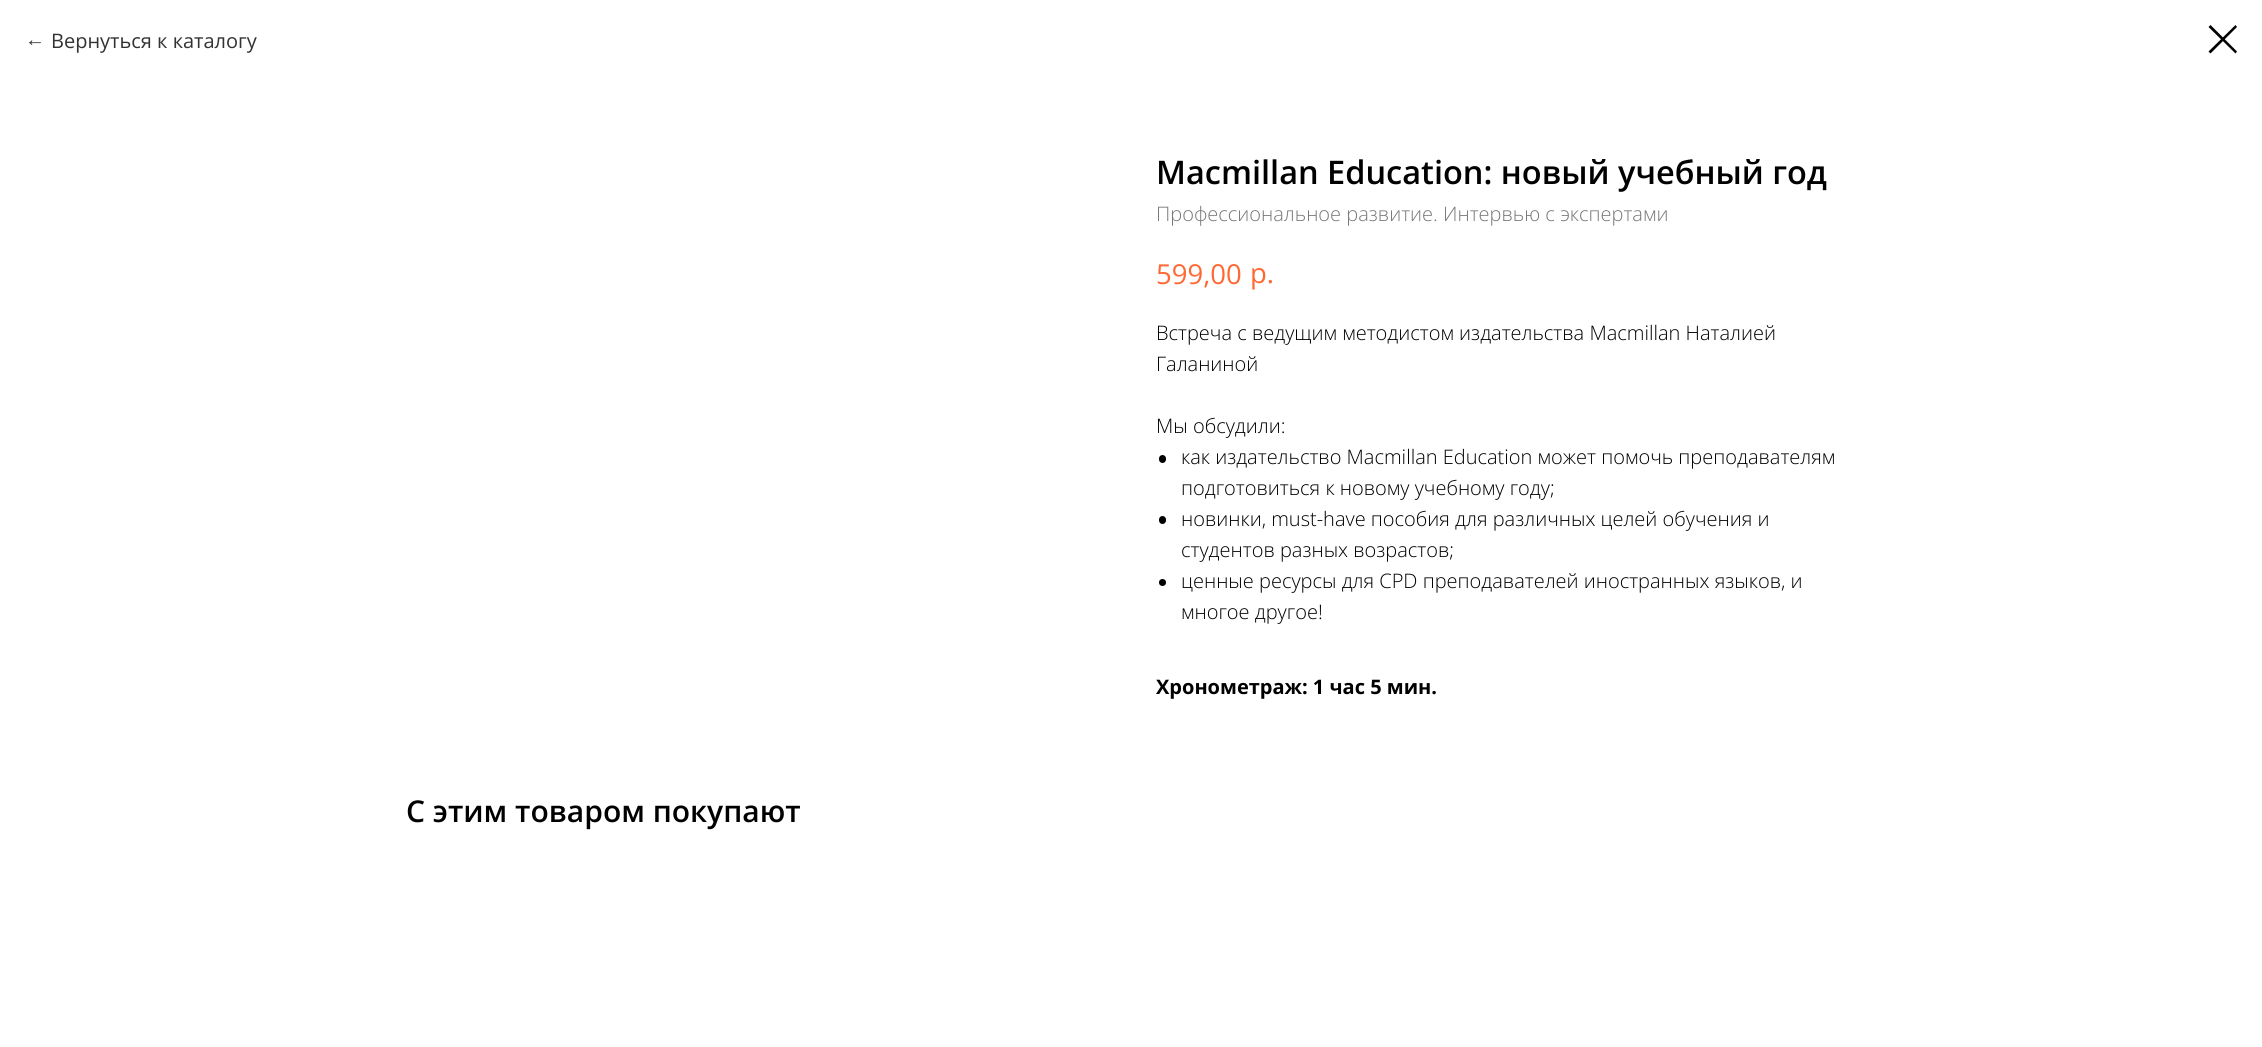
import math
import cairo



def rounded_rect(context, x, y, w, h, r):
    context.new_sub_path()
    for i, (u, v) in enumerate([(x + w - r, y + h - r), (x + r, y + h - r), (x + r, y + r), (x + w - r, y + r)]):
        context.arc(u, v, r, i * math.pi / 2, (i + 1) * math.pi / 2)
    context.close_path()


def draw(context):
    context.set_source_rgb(1, 1, 1)
    context.paint()
    context.set_source_rgb(0, 0, 0)
    context.set_fill_rule(cairo.FillRule.EVEN_ODD)
    context.new_path()
    context.move_to(2208.5, 27)
    context.line_to(2210.5, 25)
    context.line_to(2237, 51.5)
    context.line_to(2235.5, 53.5)
    context.close_path()
    context.fill()
    context.new_path()
    context.move_to(2235.5, 25)
    context.line_to(2237, 27)
    context.line_to(2210.5, 53.5)
    context.line_to(2208.5, 51.5)
    context.close_path()
    context.fill()
    rounded_rect(context, 1159, 455, 7, 8, 3.5)
    context.fill()
    rounded_rect(context, 1159, 516, 7, 8, 3.5)
    context.fill()
    context.arc(1162.5, 582.5, 3.5, 0, 2 * math.pi)
    context.fill()
    context.select_font_face("Liberation Sans")
    context.set_font_size(20)
    context.set_source_rgb(51 / 255, 51 / 255, 51 / 255)
    context.move_to(25, 46)
    context.show_text("←")
    context.select_font_face("Open Sans")
    context.move_to(51, 48)
    context.show_text("Вернуться к каталогу")
    context.select_font_face("Open Sans SemiBold")
    context.set_font_size(32.5)
    context.set_source_rgb(0, 0, 0)
    context.move_to(1156, 184)
    context.show_text("Macmillan Education: новый учебный год")
    context.select_font_face("Open Sans Light")
    context.set_font_size(20)
    context.set_source_rgb(119 / 255, 119 / 255, 119 / 255)
    context.move_to(1156, 221)
    context.show_text("Профессиональное развитие. Интервью с экспертами")
    context.select_font_face("Open Sans")
    context.set_font_size(27.5)
    context.set_source_rgb(1, 104 / 255, 51 / 255)
    context.move_to(1156, 284)
    context.show_text("599,00")
    context.move_to(1250, 283)
    context.show_text("р.")
    context.select_font_face("Open Sans Light")
    context.set_font_size(20)
    context.set_source_rgb(0, 0, 0)
    context.move_to(1156, 340)
    context.show_text("Встреча с ведущим методистом издательства Macmillan Наталией")
    context.move_to(1156, 371)
    context.show_text("Галаниной")
    context.move_to(1156, 433)
    context.show_text("Мы обсудили:")
    context.move_to(1181, 464)
    context.show_text("как издательство Macmillan Education может помочь преподавателям")
    context.move_to(1181, 495)
    context.show_text("подготовиться к новому учебному году;")
    context.move_to(1181, 526)
    context.show_text("новинки, must-have пособия для различных целей обучения и")
    context.move_to(1181, 557)
    context.show_text("студентов разных возрастов;")
    context.move_to(1181, 588)
    context.show_text("ценные ресурсы для CPD преподавателей иностранных языков, и")
    context.move_to(1181, 619)
    context.show_text("многое другое!")
    context.select_font_face("Open Sans", cairo.FontSlant.NORMAL, cairo.FontWeight.BOLD)
    context.move_to(1156, 694)
    context.show_text("Хронометраж: 1 час 5 мин.")
    context.select_font_face("Open Sans SemiBold")
    context.set_font_size(30)
    context.move_to(406, 822)
    context.show_text("С этим товаром покупают")


surface = cairo.ImageSurface(cairo.Format.RGB24, 2262, 1047)
context = cairo.Context(surface)
options = cairo.FontOptions()
options.set_hint_metrics(cairo.HintMetrics.OFF)
options.set_hint_style(cairo.HintStyle.NONE)
context.set_font_options(options)
context.set_miter_limit(4)
draw(context)
surface.write_to_png("out.png")
